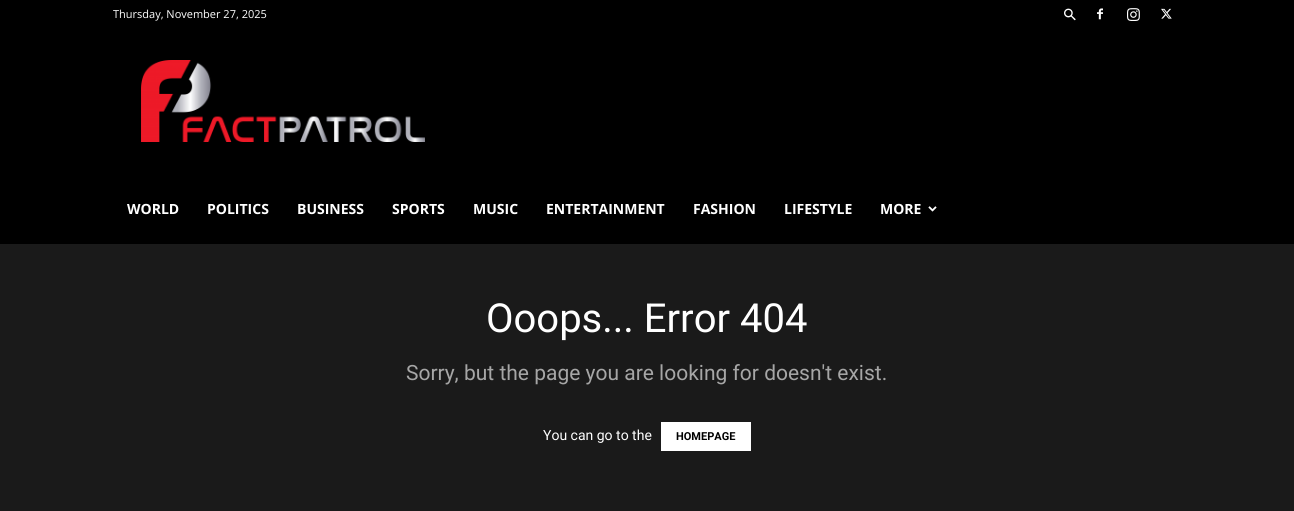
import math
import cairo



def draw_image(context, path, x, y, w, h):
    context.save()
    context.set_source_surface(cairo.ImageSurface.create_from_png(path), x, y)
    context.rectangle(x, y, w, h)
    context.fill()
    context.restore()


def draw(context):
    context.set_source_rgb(26 / 255, 26 / 255, 26 / 255)
    context.paint()
    context.set_source_rgb(0, 0, 0)
    context.rectangle(0, 0, 1294, 244)
    context.fill()
    draw_image(context, "images/1.png", 141, 60, 284, 82)
    draw_image(context, "images/2.png", 1064, 8, 12, 13)
    draw_image(context, "images/3.png", 1097, 8, 6, 12)
    draw_image(context, "images/4.png", 1127, 8, 13, 13)
    draw_image(context, "images/5.png", 1161, 8, 11, 11)
    draw_image(context, "images/6.png", 928, 206, 9, 6)
    context.set_source_rgb(1, 1, 1)
    context.rectangle(661, 422, 90, 29)
    context.fill()
    context.select_font_face("Open Sans")
    context.set_font_size(11)
    context.move_to(113, 18)
    context.show_text("Thursday, November 27, 2025")
    context.select_font_face("Open Sans", cairo.FontSlant.NORMAL, cairo.FontWeight.BOLD)
    context.set_font_size(14)
    context.move_to(127, 214)
    context.show_text("WORLD")
    context.move_to(207, 214)
    context.show_text("POLITICS")
    context.move_to(297, 214)
    context.show_text("BUSINESS")
    context.move_to(392, 214)
    context.show_text("SPORTS")
    context.move_to(473, 214)
    context.show_text("MUSIC")
    context.move_to(546, 214)
    context.show_text("ENTERTAINMENT")
    context.move_to(693, 214)
    context.show_text("FASHION")
    context.move_to(784, 214)
    context.show_text("LIFESTYLE")
    context.move_to(880, 214)
    context.show_text("MORE")
    context.select_font_face("Roboto")
    context.set_font_size(40)
    context.move_to(486, 332)
    context.show_text("Ooops... Error 404")
    context.set_font_size(21)
    context.set_source_rgb(166 / 255, 166 / 255, 166 / 255)
    context.move_to(406, 380)
    context.show_text("Sorry, but the page you are looking for doesn't exist.")
    context.set_font_size(14)
    context.set_source_rgb(1, 1, 1)
    context.move_to(543, 440)
    context.show_text("You can go to the")
    context.select_font_face("Roboto", cairo.FontSlant.NORMAL, cairo.FontWeight.BOLD)
    context.set_font_size(11)
    context.set_source_rgb(0, 0, 0)
    context.move_to(676, 440)
    context.show_text("HOMEPAGE")


surface = cairo.ImageSurface(cairo.Format.RGB24, 1294, 511)
context = cairo.Context(surface)
options = cairo.FontOptions()
options.set_hint_metrics(cairo.HintMetrics.OFF)
options.set_hint_style(cairo.HintStyle.NONE)
context.set_font_options(options)
context.set_miter_limit(4)
draw(context)
surface.write_to_png("out.png")
